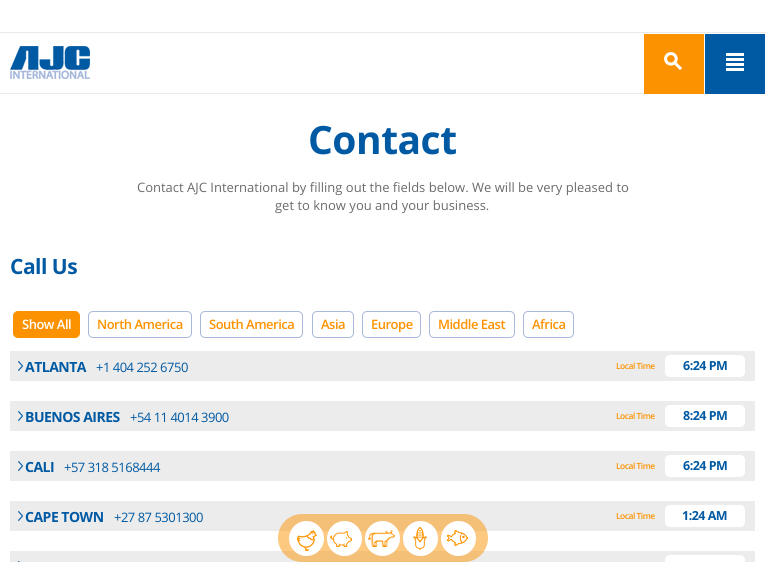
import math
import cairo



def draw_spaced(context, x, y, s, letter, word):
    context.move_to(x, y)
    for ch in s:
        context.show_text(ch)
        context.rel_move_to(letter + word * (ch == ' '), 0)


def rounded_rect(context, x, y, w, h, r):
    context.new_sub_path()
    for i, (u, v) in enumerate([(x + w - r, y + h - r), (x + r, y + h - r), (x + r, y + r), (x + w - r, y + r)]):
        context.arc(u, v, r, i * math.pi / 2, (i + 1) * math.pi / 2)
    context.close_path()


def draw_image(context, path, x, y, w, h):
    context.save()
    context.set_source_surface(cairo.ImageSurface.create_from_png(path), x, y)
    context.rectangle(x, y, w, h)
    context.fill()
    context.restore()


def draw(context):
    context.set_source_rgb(1, 1, 1)
    context.paint()
    context.set_source_rgb(233 / 255, 233 / 255, 233 / 255)
    context.rectangle(0, 32, 765, 1)
    context.fill()
    draw_image(context, "images/1.png", 10, 46, 80, 33)
    context.rectangle(0, 93, 705, 1)
    context.fill()
    context.set_source_rgb(253 / 255, 146 / 255, 0)
    context.rectangle(644, 34, 60, 60)
    context.fill()
    draw_image(context, "images/2.png", 664, 52, 18, 18)
    context.set_source_rgb(0, 89 / 255, 163 / 255)
    context.rectangle(705, 34, 60, 60)
    context.fill()
    draw_image(context, "images/3.png", 726, 53, 18, 18)
    context.set_source_rgb(253 / 255, 146 / 255, 0)
    rounded_rect(context, 13.5, 311.5, 66, 26, 4.5)
    context.fill_preserve()
    context.set_line_width(1)
    context.stroke()
    rounded_rect(context, 88.5, 311.5, 103, 26, 4.5)
    context.set_source_rgb(168 / 255, 185 / 255, 220 / 255)
    context.stroke()
    rounded_rect(context, 200.5, 311.5, 102, 26, 4.5)
    context.stroke()
    rounded_rect(context, 312.5, 311.5, 41, 26, 4.5)
    context.stroke()
    rounded_rect(context, 362.5, 311.5, 58, 26, 4.5)
    context.stroke()
    rounded_rect(context, 429.5, 311.5, 85, 26, 4.5)
    context.stroke()
    rounded_rect(context, 523.5, 311.5, 50, 26, 4.5)
    context.stroke()
    context.set_source_rgb(236 / 255, 236 / 255, 236 / 255)
    context.rectangle(10, 351, 745, 30)
    context.fill()
    draw_image(context, "images/4.png", 18, 361, 5, 10)
    context.set_source_rgb(1, 1, 1)
    rounded_rect(context, 665, 355, 80, 22, 5)
    context.fill()
    context.set_source_rgb(236 / 255, 236 / 255, 236 / 255)
    context.rectangle(10, 401, 745, 30)
    context.fill()
    draw_image(context, "images/4.png", 18, 411, 5, 10)
    context.set_source_rgb(1, 1, 1)
    rounded_rect(context, 665, 405, 80, 22, 5)
    context.fill()
    context.set_source_rgb(236 / 255, 236 / 255, 236 / 255)
    context.rectangle(10, 451, 745, 30)
    context.fill()
    draw_image(context, "images/4.png", 18, 461, 5, 10)
    context.set_source_rgb(1, 1, 1)
    rounded_rect(context, 665, 455, 80, 22, 5)
    context.fill()
    context.set_source_rgb(236 / 255, 236 / 255, 236 / 255)
    context.rectangle(10, 501, 745, 30)
    context.fill()
    draw_image(context, "images/4.png", 18, 511, 5, 10)
    context.set_source_rgb(1, 1, 1)
    rounded_rect(context, 665, 505, 80, 22, 5)
    context.fill()
    context.set_source_rgb(236 / 255, 236 / 255, 236 / 255)
    context.rectangle(10, 551, 745, 11)
    context.fill()
    draw_image(context, "images/5.png", 18, 561, 2, 1)
    context.set_source_rgb(1, 1, 1)
    rounded_rect(context, 665, 555, 80, 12, 5)
    context.fill()
    context.set_source_rgba(253 / 255, 146 / 255, 0, 0.5)
    rounded_rect(context, 278, 514, 210, 48, 24)
    context.fill()
    context.set_source_rgb(1, 1, 1)
    context.arc(306.5, 538.5, 17.5, 0, 2 * math.pi)
    context.fill()
    draw_image(context, "images/6.png", 297, 530, 20, 21)
    context.arc(344.5, 538.5, 17.5, 0, 2 * math.pi)
    context.fill()
    draw_image(context, "images/7.png", 330, 531, 22, 16)
    context.arc(382.5, 538.5, 17.5, 0, 2 * math.pi)
    context.fill()
    draw_image(context, "images/8.png", 368, 530, 27, 17)
    context.arc(420.5, 538.5, 17.5, 0, 2 * math.pi)
    context.fill()
    draw_image(context, "images/9.png", 413, 527, 14, 23)
    context.arc(458.5, 538.5, 17.5, 0, 2 * math.pi)
    context.fill()
    draw_image(context, "images/10.png", 447, 530, 21, 16)
    context.select_font_face("Open Sans", cairo.FontSlant.NORMAL, cairo.FontWeight.BOLD)
    context.set_font_size(39)
    context.set_source_rgb(0, 89 / 255, 163 / 255)
    draw_spaced(context, 308, 154, "Contact", -0.5, 0)
    context.select_font_face("Open Sans")
    context.set_font_size(13)
    context.set_source_rgb(107 / 255, 107 / 255, 107 / 255)
    context.move_to(137, 192)
    context.show_text("Contact AJC International by filling out the fields below. We will be very pleased to")
    context.move_to(275, 210)
    context.show_text("get to know you and your business.")
    context.select_font_face("Open Sans", cairo.FontSlant.NORMAL, cairo.FontWeight.BOLD)
    context.set_font_size(21)
    context.set_source_rgb(0, 89 / 255, 163 / 255)
    draw_spaced(context, 10, 274, "Call Us", -0.5, 0)
    context.select_font_face("Open Sans SemiBold")
    context.set_font_size(13)
    context.set_source_rgb(1, 1, 1)
    draw_spaced(context, 22, 329, "Show All", -0.5, 0)
    context.set_source_rgb(253 / 255, 146 / 255, 0)
    draw_spaced(context, 97, 329, "North America", -0.5, 0)
    draw_spaced(context, 209, 329, "South America", -0.5, 0)
    draw_spaced(context, 321, 329, "Asia", -0.5, 0)
    draw_spaced(context, 371, 329, "Europe", -0.5, 0)
    draw_spaced(context, 438, 329, "Middle East", -0.5, 0)
    draw_spaced(context, 532, 329, "Africa", -0.5, 0)
    context.select_font_face("Open Sans", cairo.FontSlant.NORMAL, cairo.FontWeight.BOLD)
    context.set_font_size(14)
    context.set_source_rgb(0, 89 / 255, 163 / 255)
    draw_spaced(context, 25, 372, "ATLANTA", -0.5, 0)
    context.select_font_face("Open Sans")
    context.set_font_size(13)
    draw_spaced(context, 96, 372, "+1 404 252 6750", -0.5, 0)
    context.select_font_face("Open Sans SemiBold")
    context.set_font_size(8.5)
    context.set_source_rgb(253 / 255, 146 / 255, 0)
    draw_spaced(context, 616, 369, "Local Time", -0.5, 0)
    context.select_font_face("Open Sans", cairo.FontSlant.NORMAL, cairo.FontWeight.BOLD)
    context.set_font_size(12.5)
    context.set_source_rgb(0, 89 / 255, 163 / 255)
    draw_spaced(context, 683, 370, "6:24 PM", -0.5, 0)
    context.set_font_size(14)
    draw_spaced(context, 25, 422, "BUENOS AIRES", -0.5, 0)
    context.select_font_face("Open Sans")
    context.set_font_size(13)
    draw_spaced(context, 130, 422, "+54 11 4014 3900", -0.5, 0)
    context.select_font_face("Open Sans SemiBold")
    context.set_font_size(8.5)
    context.set_source_rgb(253 / 255, 146 / 255, 0)
    draw_spaced(context, 616, 419, "Local Time", -0.5, 0)
    context.select_font_face("Open Sans", cairo.FontSlant.NORMAL, cairo.FontWeight.BOLD)
    context.set_font_size(12.5)
    context.set_source_rgb(0, 89 / 255, 163 / 255)
    draw_spaced(context, 683, 420, "8:24 PM", -0.5, 0)
    context.set_font_size(14)
    draw_spaced(context, 25, 472, "CALI", -0.5, 0)
    context.select_font_face("Open Sans")
    context.set_font_size(13)
    draw_spaced(context, 64, 472, "+57 318 5168444", -0.5, 0)
    context.select_font_face("Open Sans SemiBold")
    context.set_font_size(8.5)
    context.set_source_rgb(253 / 255, 146 / 255, 0)
    draw_spaced(context, 616, 469, "Local Time", -0.5, 0)
    context.select_font_face("Open Sans", cairo.FontSlant.NORMAL, cairo.FontWeight.BOLD)
    context.set_font_size(12.5)
    context.set_source_rgb(0, 89 / 255, 163 / 255)
    draw_spaced(context, 683, 470, "6:24 PM", -0.5, 0)
    context.set_font_size(14)
    draw_spaced(context, 25, 522, "CAPE TOWN", -0.5, 0)
    context.select_font_face("Open Sans")
    context.set_font_size(13)
    draw_spaced(context, 114, 522, "+27 87 5301300", -0.5, 0)
    context.select_font_face("Open Sans SemiBold")
    context.set_font_size(8.5)
    context.set_source_rgb(253 / 255, 146 / 255, 0)
    draw_spaced(context, 616, 519, "Local Time", -0.5, 0)
    context.select_font_face("Open Sans", cairo.FontSlant.NORMAL, cairo.FontWeight.BOLD)
    context.set_font_size(12.5)
    context.set_source_rgb(0, 89 / 255, 163 / 255)
    draw_spaced(context, 682, 520, "1:24 AM", -0.5, 0)


surface = cairo.ImageSurface(cairo.Format.RGB24, 765, 562)
context = cairo.Context(surface)
options = cairo.FontOptions()
options.set_hint_metrics(cairo.HintMetrics.OFF)
options.set_hint_style(cairo.HintStyle.NONE)
context.set_font_options(options)
context.set_miter_limit(4)
draw(context)
surface.write_to_png("out.png")
